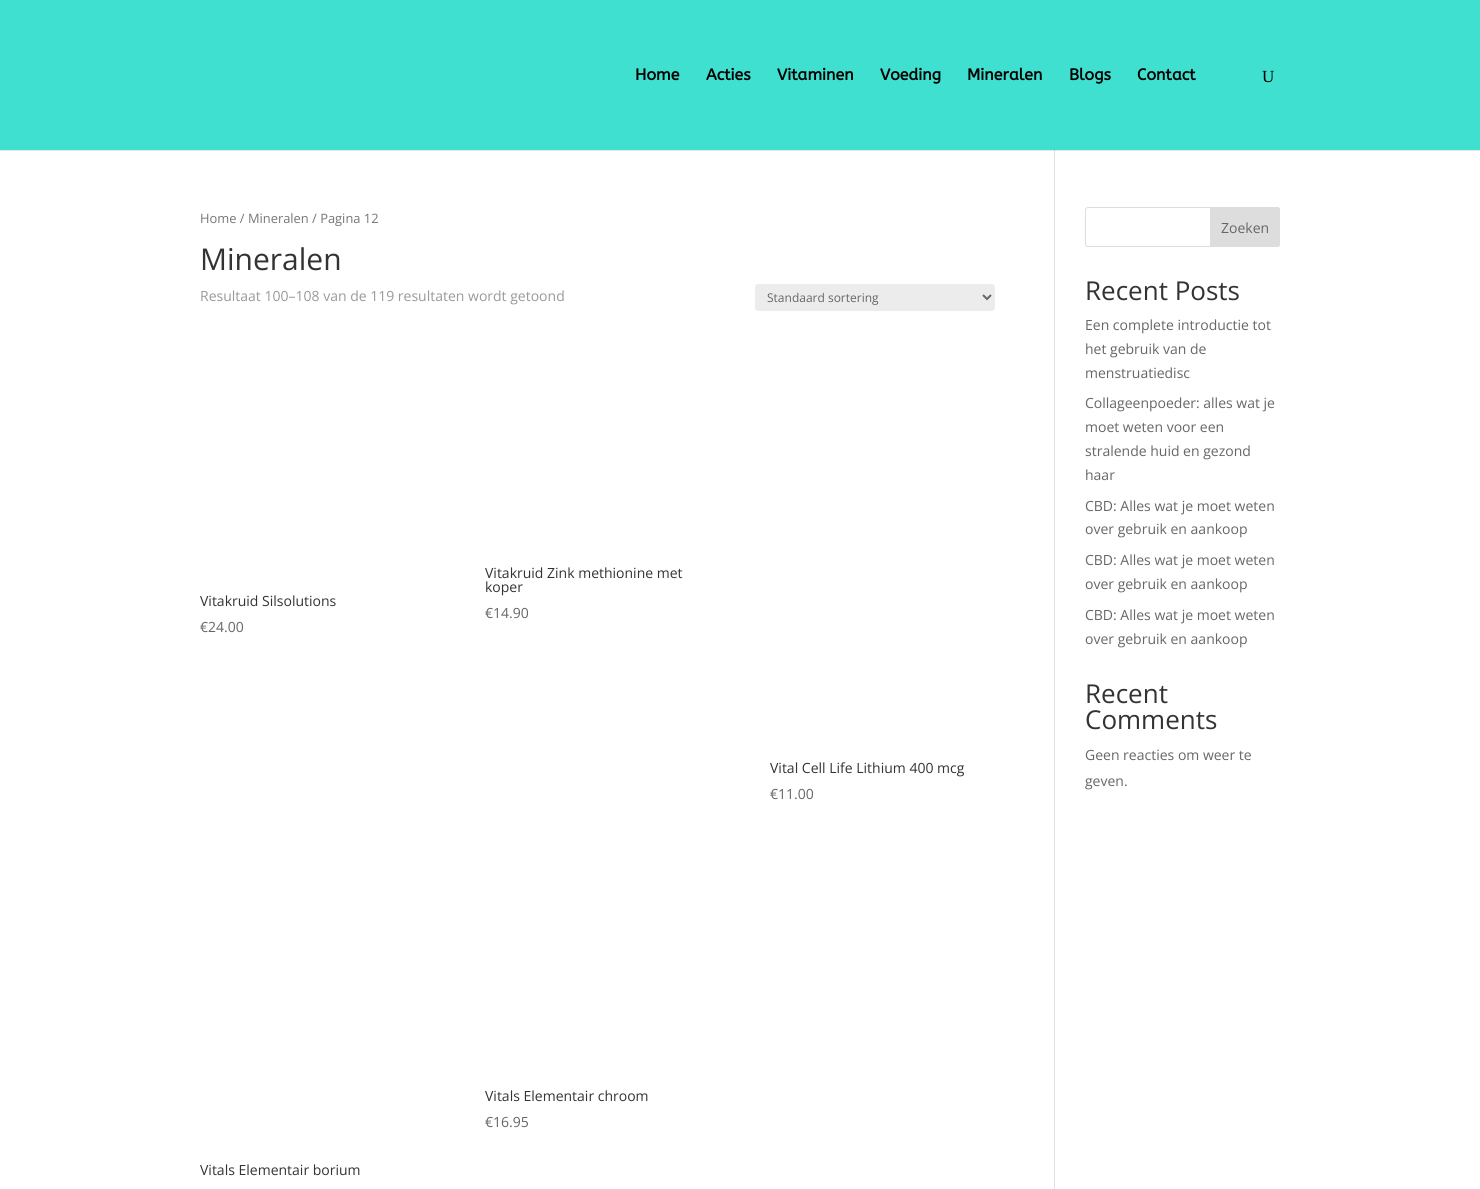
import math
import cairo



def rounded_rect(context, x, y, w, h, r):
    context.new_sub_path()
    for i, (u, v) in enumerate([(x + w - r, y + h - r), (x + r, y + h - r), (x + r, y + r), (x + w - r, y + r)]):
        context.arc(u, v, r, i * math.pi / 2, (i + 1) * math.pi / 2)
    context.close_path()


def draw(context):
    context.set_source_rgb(1, 1, 1)
    context.paint()
    context.set_source_rgb(230 / 255, 230 / 255, 230 / 255)
    context.rectangle(0, 150, 1480, 1)
    context.fill()
    context.set_source_rgb(226 / 255, 226 / 255, 226 / 255)
    context.rectangle(1054, 149, 1, 1040)
    context.fill()
    context.set_source_rgb(64 / 255, 224 / 255, 208 / 255)
    context.rectangle(0, 0, 1480, 150)
    context.fill()
    context.set_source_rgb(203 / 255, 203 / 255, 203 / 255)
    context.rectangle(1054, 150, 1, 1)
    context.fill()
    context.set_source_rgb(236 / 255, 236 / 255, 236 / 255)
    rounded_rect(context, 755, 284, 240, 27, 3)
    context.fill()
    context.new_path()
    context.move_to(983, 295)
    context.line_to(987, 299)
    context.line_to(991, 295)
    context.set_source_rgb(102 / 255, 102 / 255, 102 / 255)
    context.stroke()
    rounded_rect(context, 1085.5, 207.5, 194, 39, 2.5)
    context.set_source_rgb(221 / 255, 221 / 255, 221 / 255)
    context.set_line_width(1)
    context.stroke()
    context.new_path()
    context.move_to(1210.5, 207.5)
    context.line_to(1277, 207.5)
    context.curve_to(1278.5, 207.5, 1279.5, 208.5, 1279.5, 210)
    context.line_to(1279.5, 244)
    context.curve_to(1279.5, 245.5, 1278.5, 246.5, 1277, 246.5)
    context.line_to(1210.5, 246.5)
    context.close_path()
    context.fill_preserve()
    context.stroke()
    context.select_font_face("ABeeZee", cairo.FontSlant.NORMAL, cairo.FontWeight.BOLD)
    context.set_font_size(16)
    context.set_source_rgb(0, 0, 0)
    context.move_to(635, 80)
    context.show_text("Home")
    context.move_to(706, 80)
    context.show_text("Acties")
    context.move_to(777, 80)
    context.show_text("Vitaminen")
    context.move_to(880, 80)
    context.show_text("Voeding")
    context.move_to(967, 80)
    context.show_text("Mineralen")
    context.move_to(1069, 80)
    context.show_text("Blogs")
    context.move_to(1137, 80)
    context.show_text("Contact")
    context.select_font_face("Liberation Serif")
    context.set_font_size(17)
    context.move_to(1262, 82)
    context.show_text("U")
    context.select_font_face("Open Sans")
    context.set_font_size(12.9)
    context.set_source_rgb(118 / 255, 118 / 255, 118 / 255)
    context.move_to(200, 223)
    context.show_text("Home / Mineralen / Pagina 12")
    context.set_font_size(30)
    context.set_source_rgb(51 / 255, 51 / 255, 51 / 255)
    context.move_to(200, 270)
    context.show_text("Mineralen")
    context.set_font_size(14)
    context.set_source_rgb(153 / 255, 153 / 255, 153 / 255)
    context.move_to(200, 301)
    context.show_text("Resultaat 100–108 van de 119 resultaten wordt getoond")
    context.set_font_size(12)
    context.set_source_rgb(102 / 255, 102 / 255, 102 / 255)
    context.move_to(767, 302)
    context.show_text("Standaard sortering")
    context.set_font_size(14)
    context.set_source_rgb(51 / 255, 51 / 255, 51 / 255)
    context.move_to(200, 606)
    context.show_text("Vitakruid Silsolutions")
    context.set_source_rgb(102 / 255, 102 / 255, 102 / 255)
    context.move_to(200, 632)
    context.show_text("€24.00")
    context.set_source_rgb(51 / 255, 51 / 255, 51 / 255)
    context.move_to(485, 578)
    context.show_text("Vitakruid Zink methionine met")
    context.move_to(485, 592)
    context.show_text("koper")
    context.set_source_rgb(102 / 255, 102 / 255, 102 / 255)
    context.move_to(485, 618)
    context.show_text("€14.90")
    context.set_source_rgb(51 / 255, 51 / 255, 51 / 255)
    context.move_to(770, 773)
    context.show_text("Vital Cell Life Lithium 400 mcg")
    context.set_source_rgb(102 / 255, 102 / 255, 102 / 255)
    context.move_to(770, 799)
    context.show_text("€11.00")
    context.set_source_rgb(51 / 255, 51 / 255, 51 / 255)
    context.move_to(485, 1101)
    context.show_text("Vitals Elementair chroom")
    context.set_source_rgb(102 / 255, 102 / 255, 102 / 255)
    context.move_to(485, 1127)
    context.show_text("€16.95")
    context.set_source_rgb(51 / 255, 51 / 255, 51 / 255)
    context.move_to(200, 1175)
    context.show_text("Vitals Elementair borium")
    context.set_source_rgb(102 / 255, 102 / 255, 102 / 255)
    context.move_to(1221, 233)
    context.show_text("Zoeken")
    context.set_font_size(26)
    context.set_source_rgb(51 / 255, 51 / 255, 51 / 255)
    context.move_to(1085, 300)
    context.show_text("Recent Posts")
    context.set_font_size(14)
    context.set_source_rgb(102 / 255, 102 / 255, 102 / 255)
    context.move_to(1085, 330)
    context.show_text("Een complete introductie tot")
    context.move_to(1085, 354)
    context.show_text("het gebruik van de")
    context.move_to(1085, 378)
    context.show_text("menstruatiedisc")
    context.move_to(1085, 408)
    context.show_text("Collageenpoeder: alles wat je")
    context.move_to(1085, 432)
    context.show_text("moet weten voor een")
    context.move_to(1085, 456)
    context.show_text("stralende huid en gezond")
    context.move_to(1085, 480)
    context.show_text("haar")
    context.move_to(1085, 511)
    context.show_text("CBD: Alles wat je moet weten")
    context.move_to(1085, 534)
    context.show_text("over gebruik en aankoop")
    context.move_to(1085, 565)
    context.show_text("CBD: Alles wat je moet weten")
    context.move_to(1085, 589)
    context.show_text("over gebruik en aankoop")
    context.move_to(1085, 620)
    context.show_text("CBD: Alles wat je moet weten")
    context.move_to(1085, 644)
    context.show_text("over gebruik en aankoop")
    context.set_font_size(26)
    context.set_source_rgb(51 / 255, 51 / 255, 51 / 255)
    context.move_to(1085, 703)
    context.show_text("Recent")
    context.move_to(1085, 729)
    context.show_text("Comments")
    context.set_font_size(14)
    context.set_source_rgb(102 / 255, 102 / 255, 102 / 255)
    context.move_to(1085, 760)
    context.show_text("Geen reacties om weer te")
    context.move_to(1085, 786)
    context.show_text("geven.")


surface = cairo.ImageSurface(cairo.Format.RGB24, 1480, 1189)
context = cairo.Context(surface)
options = cairo.FontOptions()
options.set_hint_metrics(cairo.HintMetrics.OFF)
options.set_hint_style(cairo.HintStyle.NONE)
context.set_font_options(options)
context.set_miter_limit(4)
draw(context)
surface.write_to_png("out.png")
